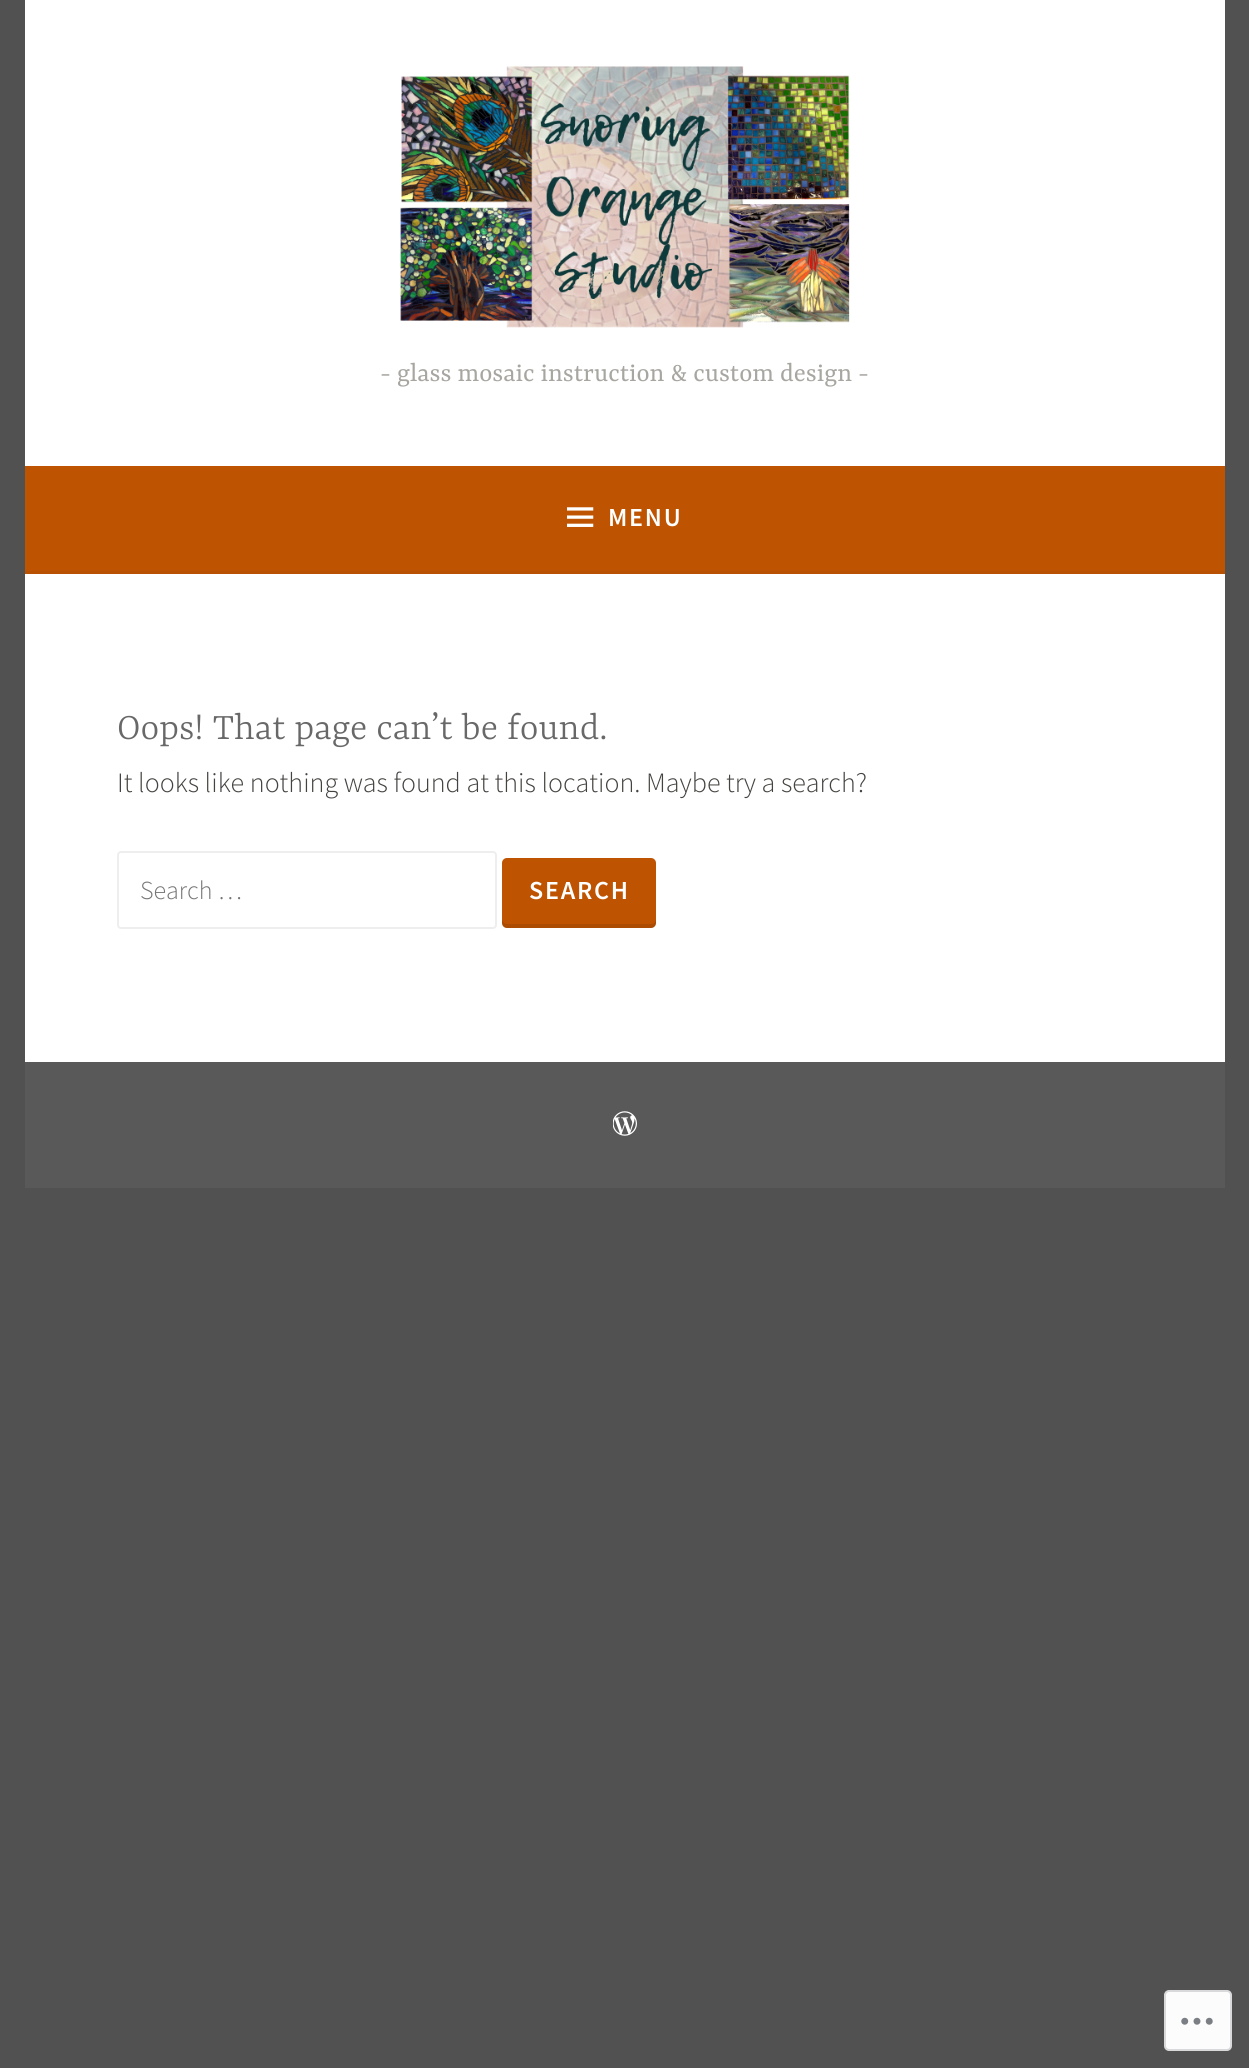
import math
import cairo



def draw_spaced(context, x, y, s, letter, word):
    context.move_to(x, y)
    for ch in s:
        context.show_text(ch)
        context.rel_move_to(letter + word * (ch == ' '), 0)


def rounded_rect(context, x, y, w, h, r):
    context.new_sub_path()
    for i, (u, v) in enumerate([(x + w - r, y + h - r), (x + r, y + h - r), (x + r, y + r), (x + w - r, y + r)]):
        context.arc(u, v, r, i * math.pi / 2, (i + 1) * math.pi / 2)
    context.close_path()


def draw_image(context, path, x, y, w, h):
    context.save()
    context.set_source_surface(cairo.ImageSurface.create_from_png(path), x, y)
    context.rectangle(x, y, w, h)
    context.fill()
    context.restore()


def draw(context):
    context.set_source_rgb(81 / 255, 81 / 255, 81 / 255)
    context.paint()
    context.set_source_rgb(1, 1, 1)
    context.rectangle(25, 0, 1200, 466)
    context.fill()
    draw_image(context, "images/1.png", 400, 66, 450, 262)
    context.set_source_rgb(190 / 255, 84 / 255, 2 / 255)
    context.rectangle(25, 466, 1200, 105)
    context.fill()
    context.set_source_rgb(184 / 255, 81 / 255, 2 / 255)
    context.rectangle(25, 571, 1200, 3)
    context.fill()
    draw_image(context, "images/2.png", 567, 507, 27, 20)
    context.set_source_rgb(1, 1, 1)
    context.rectangle(25, 574, 1200, 488)
    context.fill()
    rounded_rect(context, 118, 852, 378, 76, 3)
    context.set_source_rgb(238 / 255, 238 / 255, 238 / 255)
    context.stroke()
    context.set_source_rgb(190 / 255, 84 / 255, 2 / 255)
    rounded_rect(context, 502, 858, 154, 70, 5)
    context.fill()
    context.set_source_rgba(0, 0, 0, 0.1)
    context.new_path()
    context.move_to(502, 919)
    context.line_to(502, 923)
    context.curve_to(502, 926, 504, 928, 507, 928)
    context.line_to(651, 928)
    context.curve_to(654, 928, 656, 926, 656, 923)
    context.line_to(656, 919)
    context.curve_to(656, 922, 654, 924, 651, 924)
    context.line_to(508, 924)
    context.curve_to(505, 924, 502, 922, 502, 919)
    context.close_path()
    context.fill()
    context.set_source_rgb(89 / 255, 89 / 255, 89 / 255)
    context.rectangle(25, 1062, 1200, 126)
    context.fill()
    draw_image(context, "images/3.png", 613, 1111, 24, 25)
    context.set_source_rgb(252 / 255, 252 / 255, 252 / 255)
    rounded_rect(context, 1165, 1991, 66, 59, 4)
    context.fill_preserve()
    context.set_source_rgb(217 / 255, 217 / 255, 219 / 255)
    context.stroke()
    draw_image(context, "images/4.png", 1181, 2017, 32, 8)
    context.select_font_face("Yrsa")
    context.set_font_size(28)
    context.set_source_rgb(168 / 255, 166 / 255, 161 / 255)
    context.move_to(380, 381)
    context.show_text("- glass mosaic instruction & custom design -")
    context.select_font_face("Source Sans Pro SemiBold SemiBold")
    context.set_font_size(26)
    context.set_source_rgb(1, 1, 1)
    draw_spaced(context, 608, 526, "MENU", 1.75, 0)
    context.select_font_face("Yrsa Light")
    context.set_font_size(40.25)
    context.set_source_rgb(104 / 255, 104 / 255, 104 / 255)
    context.move_to(117, 739)
    context.show_text("Oops! That page can’t be found.")
    context.select_font_face("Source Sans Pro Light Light")
    context.set_font_size(28)
    context.set_source_rgb(68 / 255, 67 / 255, 64 / 255)
    context.move_to(117, 792)
    context.show_text("It looks like nothing was found at this location. Maybe try a search?")
    context.set_font_size(26)
    context.set_source_rgb(117 / 255, 117 / 255, 117 / 255)
    context.move_to(140, 899)
    context.show_text("Search …")
    context.select_font_face("Source Sans Pro SemiBold SemiBold")
    context.set_source_rgb(1, 1, 1)
    draw_spaced(context, 529, 899, "SEARCH", 1.75, 0)


surface = cairo.ImageSurface(cairo.Format.RGB24, 1249, 2068)
context = cairo.Context(surface)
options = cairo.FontOptions()
options.set_hint_metrics(cairo.HintMetrics.OFF)
options.set_hint_style(cairo.HintStyle.NONE)
context.set_font_options(options)
context.set_miter_limit(4)
draw(context)
surface.write_to_png("out.png")
